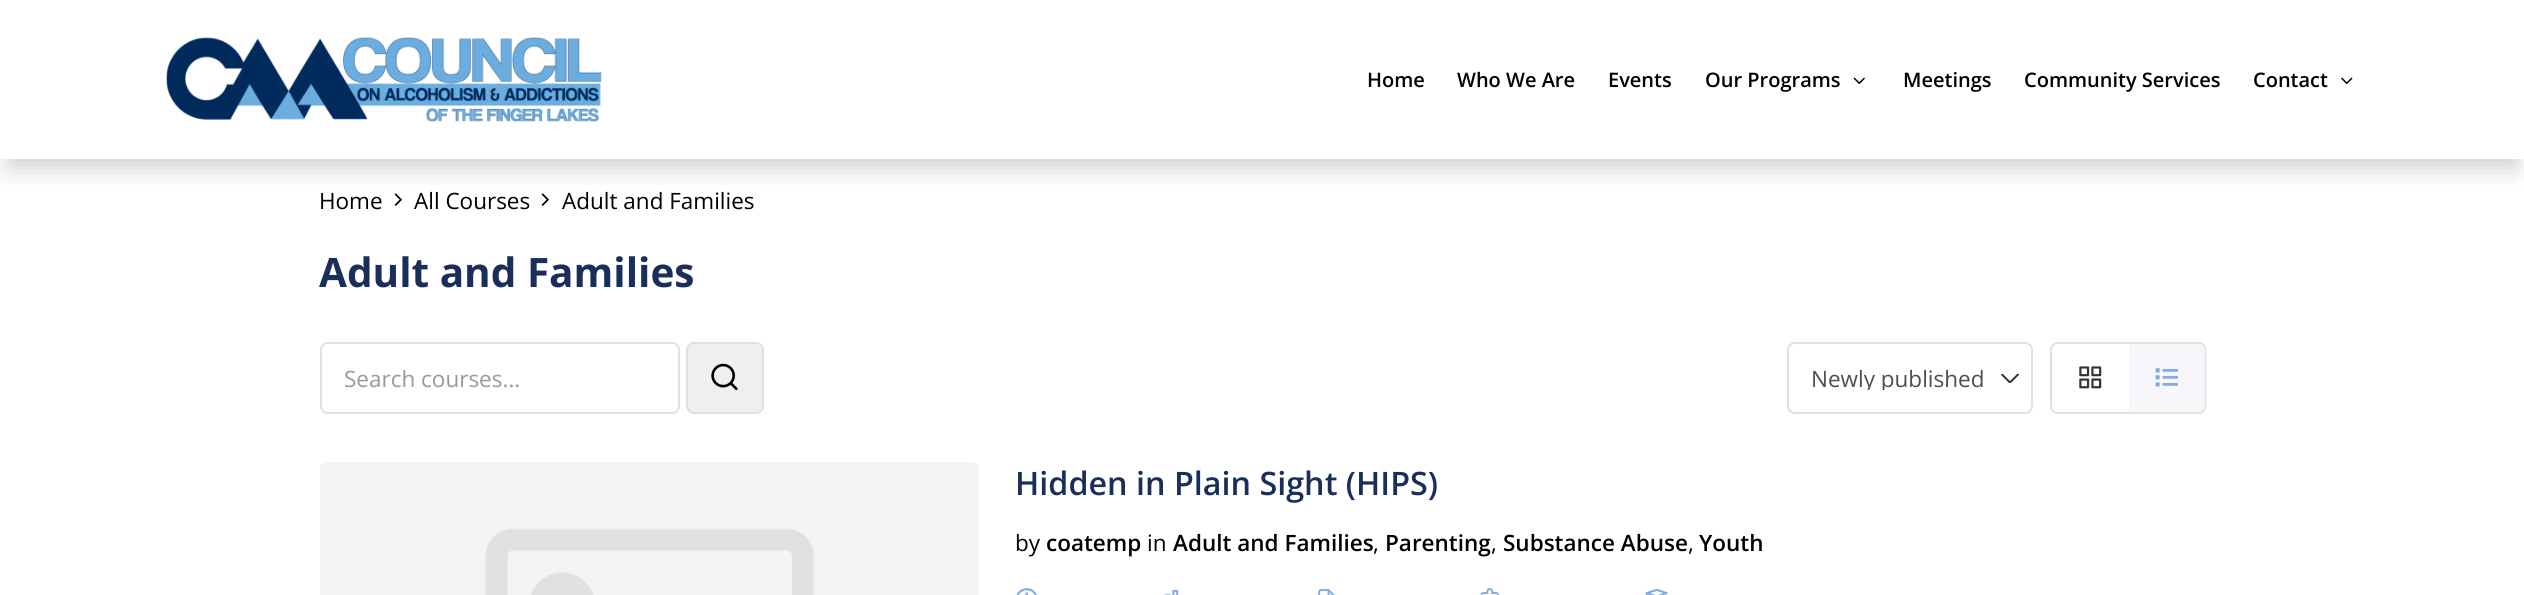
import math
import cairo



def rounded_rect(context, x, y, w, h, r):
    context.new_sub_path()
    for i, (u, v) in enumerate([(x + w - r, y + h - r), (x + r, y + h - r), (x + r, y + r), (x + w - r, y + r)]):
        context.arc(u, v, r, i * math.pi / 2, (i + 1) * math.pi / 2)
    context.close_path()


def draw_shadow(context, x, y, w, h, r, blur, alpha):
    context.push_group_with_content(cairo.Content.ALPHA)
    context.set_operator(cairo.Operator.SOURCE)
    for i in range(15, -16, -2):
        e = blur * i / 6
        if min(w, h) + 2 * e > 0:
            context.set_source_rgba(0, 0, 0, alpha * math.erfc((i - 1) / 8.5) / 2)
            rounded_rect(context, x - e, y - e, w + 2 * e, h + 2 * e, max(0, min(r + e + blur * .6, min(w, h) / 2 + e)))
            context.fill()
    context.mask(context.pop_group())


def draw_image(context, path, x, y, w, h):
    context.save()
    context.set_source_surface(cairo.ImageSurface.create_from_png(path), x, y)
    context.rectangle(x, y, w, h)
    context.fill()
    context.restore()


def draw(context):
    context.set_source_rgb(1, 1, 1)
    context.paint()
    draw_image(context, "images/4.png", 394, 193, 8, 13)
    draw_image(context, "images/4.png", 541, 193, 8, 13)
    context.save()
    context.rectangle(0, 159, 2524, 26)
    context.clip()
    context.set_source_rgb(0, 0, 0)
    draw_shadow(context, 9, 27, 2507, 141, 0, 13.5, 0.19)
    context.restore()
    draw_image(context, "images/1.png", 166, 37, 436, 85)
    draw_image(context, "images/2.png", 1853, 77, 12, 7)
    draw_image(context, "images/3.png", 2341, 77, 12, 7)
    rounded_rect(context, 321, 343, 358, 70, 7)
    context.set_source_rgb(226 / 255, 224 / 255, 219 / 255)
    context.stroke()
    context.set_source_rgb(239 / 255, 239 / 255, 239 / 255)
    rounded_rect(context, 687, 343, 76, 70, 7)
    context.fill_preserve()
    context.set_source_rgb(226 / 255, 224 / 255, 219 / 255)
    context.stroke()
    draw_image(context, "images/5.png", 711, 363, 27, 28)
    context.save()
    context.rectangle(2001, 374, 18, 9)
    context.clip()
    context.new_path()
    context.move_to(2002, 374.5)
    context.line_to(2010, 382.5)
    context.line_to(2018, 374.5)
    context.set_source_rgb(51 / 255, 51 / 255, 51 / 255)
    context.set_line_cap(cairo.LineCap.ROUND)
    context.set_line_join(cairo.LineJoin.ROUND)
    context.stroke()
    context.restore()
    rounded_rect(context, 1788, 343, 244, 70, 7)
    context.stroke()
    context.set_fill_rule(cairo.FillRule.EVEN_ODD)
    context.new_path()
    context.move_to(2058, 342)
    context.line_to(2128, 342)
    context.line_to(2128, 414)
    context.line_to(2058, 414)
    context.curve_to(2054, 414, 2050, 411, 2050, 406)
    context.line_to(2050, 350)
    context.curve_to(2050, 345, 2054, 342, 2058, 342)
    context.close_path()
    context.move_to(2058, 344)
    context.line_to(2128, 344)
    context.line_to(2128, 412)
    context.line_to(2058, 412)
    context.curve_to(2055, 412, 2052, 410, 2052, 406)
    context.line_to(2052, 350)
    context.curve_to(2052, 346, 2055, 344, 2058, 344)
    context.close_path()
    context.fill()
    draw_image(context, "images/6.png", 2079, 366, 23, 23)
    context.set_source_rgb(247 / 255, 247 / 255, 251 / 255)
    context.new_path()
    context.move_to(2129, 342)
    context.line_to(2199, 342)
    context.curve_to(2203.5, 342, 2207, 345.5, 2207, 350)
    context.line_to(2207, 406)
    context.curve_to(2207, 410.5, 2203.5, 414, 2199, 414)
    context.line_to(2129, 414)
    context.close_path()
    context.fill()
    context.set_source_rgb(226 / 255, 224 / 255, 219 / 255)
    context.new_path()
    context.move_to(2128, 342)
    context.line_to(2199, 342)
    context.curve_to(2203, 342, 2206, 345, 2206, 350)
    context.line_to(2206, 406)
    context.curve_to(2206, 411, 2203, 414, 2199, 414)
    context.line_to(2128, 414)
    context.close_path()
    context.move_to(2128, 344)
    context.line_to(2199, 344)
    context.curve_to(2202, 344, 2205, 346, 2205, 350)
    context.line_to(2205, 406)
    context.curve_to(2205, 410, 2202, 412, 2199, 412)
    context.line_to(2128, 412)
    context.close_path()
    context.fill()
    draw_image(context, "images/7.png", 2155, 368, 23, 19)
    draw_image(context, "images/8.png", 320, 462, 659, 133)
    draw_image(context, "images/9.png", 1016, 588, 21, 7)
    draw_image(context, "images/10.png", 1165, 589, 14, 6)
    draw_image(context, "images/11.png", 1318, 589, 17, 6)
    draw_image(context, "images/12.png", 1480, 588, 19, 7)
    draw_image(context, "images/13.png", 1645, 588, 23, 7)
    context.select_font_face("Open Sans SemiBold")
    context.set_font_size(20)
    context.set_source_rgb(0, 0, 0)
    context.move_to(1367, 87)
    context.show_text("Home")
    context.move_to(1457, 87)
    context.show_text("Who We Are")
    context.move_to(1608, 87)
    context.show_text("Events")
    context.move_to(1705, 87)
    context.show_text("Our Programs")
    context.move_to(1903, 87)
    context.show_text("Meetings")
    context.move_to(2024, 87)
    context.show_text("Community Services")
    context.move_to(2253, 87)
    context.show_text("Contact")
    context.select_font_face("Open Sans")
    context.set_font_size(22.5)
    context.move_to(319, 209)
    context.show_text("Home")
    context.move_to(414, 209)
    context.show_text("All Courses")
    context.move_to(562, 209)
    context.show_text("Adult and Families")
    context.select_font_face("Open Sans", cairo.FontSlant.NORMAL, cairo.FontWeight.BOLD)
    context.set_font_size(40.5)
    context.set_source_rgb(26 / 255, 46 / 255, 91 / 255)
    context.move_to(319, 287)
    context.show_text("Adult and Families")
    context.select_font_face("Open Sans")
    context.set_font_size(22.5)
    context.set_source_rgb(153 / 255, 153 / 255, 153 / 255)
    context.move_to(344, 387)
    context.show_text("Search courses...")
    context.save()
    context.set_fill_rule(cairo.FillRule.WINDING)
    context.rectangle(1812, 366, 174, 24)
    context.clip()
    context.set_source_rgb(78 / 255, 78 / 255, 78 / 255)
    context.move_to(1811, 387)
    context.show_text("Newly published")
    context.restore()
    context.select_font_face("Open Sans SemiBold")
    context.set_font_size(32.3)
    context.set_source_rgb(26 / 255, 46 / 255, 91 / 255)
    context.move_to(1015, 495)
    context.show_text("Hidden in Plain Sight (HIPS)")
    context.select_font_face("Open Sans")
    context.set_font_size(22.5)
    context.set_source_rgb(0, 0, 0)
    context.move_to(1015, 551)
    context.show_text("by")
    context.select_font_face("Open Sans SemiBold")
    context.move_to(1046, 551)
    context.show_text("coatemp")
    context.select_font_face("Open Sans")
    context.move_to(1147, 551)
    context.show_text("in")
    context.select_font_face("Open Sans SemiBold")
    context.move_to(1173, 551)
    context.show_text("Adult and Families")
    context.select_font_face("Open Sans")
    context.move_to(1373, 551)
    context.show_text(",")
    context.select_font_face("Open Sans SemiBold")
    context.move_to(1385, 551)
    context.show_text("Parenting")
    context.select_font_face("Open Sans")
    context.move_to(1491, 551)
    context.show_text(",")
    context.select_font_face("Open Sans SemiBold")
    context.move_to(1503, 551)
    context.show_text("Substance Abuse")
    context.select_font_face("Open Sans")
    context.move_to(1688, 551)
    context.show_text(",")
    context.select_font_face("Open Sans SemiBold")
    context.move_to(1699, 551)
    context.show_text("Youth")


surface = cairo.ImageSurface(cairo.Format.RGB24, 2524, 595)
context = cairo.Context(surface)
options = cairo.FontOptions()
options.set_hint_metrics(cairo.HintMetrics.OFF)
options.set_hint_style(cairo.HintStyle.NONE)
context.set_font_options(options)
context.set_miter_limit(4)
draw(context)
surface.write_to_png("out.png")
